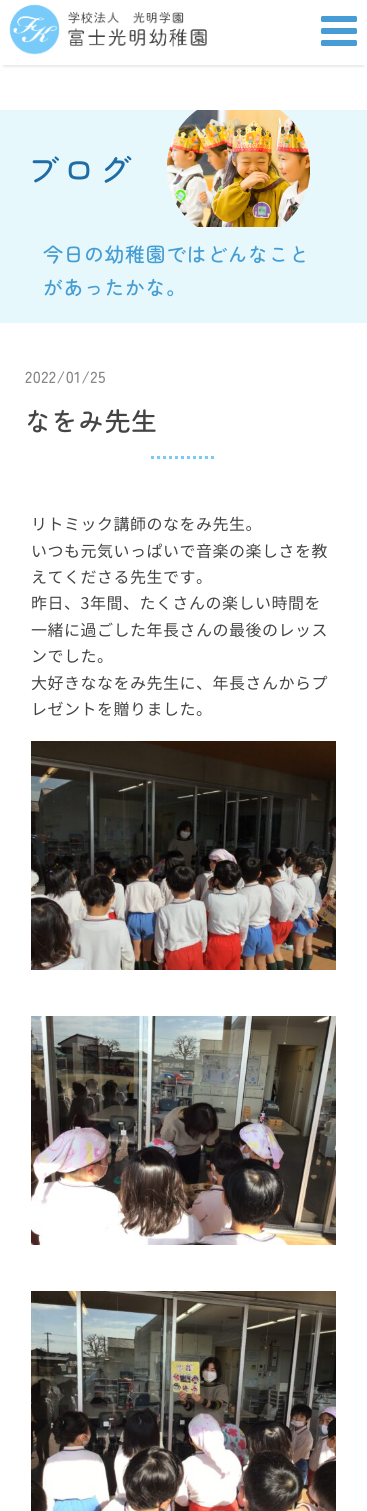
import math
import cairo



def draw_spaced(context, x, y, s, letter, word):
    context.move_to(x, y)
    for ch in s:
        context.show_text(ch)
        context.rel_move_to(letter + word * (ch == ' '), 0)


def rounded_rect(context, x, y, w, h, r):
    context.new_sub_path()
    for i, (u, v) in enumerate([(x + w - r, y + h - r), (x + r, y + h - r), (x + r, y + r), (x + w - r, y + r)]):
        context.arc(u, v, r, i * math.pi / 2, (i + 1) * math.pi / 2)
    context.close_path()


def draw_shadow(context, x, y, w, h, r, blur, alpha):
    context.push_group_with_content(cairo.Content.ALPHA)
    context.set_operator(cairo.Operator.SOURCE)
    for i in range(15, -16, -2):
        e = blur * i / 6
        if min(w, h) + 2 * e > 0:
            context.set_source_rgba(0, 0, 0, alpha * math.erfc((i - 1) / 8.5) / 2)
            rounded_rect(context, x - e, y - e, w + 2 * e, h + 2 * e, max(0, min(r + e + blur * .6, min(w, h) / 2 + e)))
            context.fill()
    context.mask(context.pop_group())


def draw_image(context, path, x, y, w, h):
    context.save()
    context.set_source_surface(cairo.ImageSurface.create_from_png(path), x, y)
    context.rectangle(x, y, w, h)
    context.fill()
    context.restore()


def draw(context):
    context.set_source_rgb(1, 1, 1)
    context.paint()
    context.save()
    context.rectangle(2, 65, 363, 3)
    context.clip()
    context.set_source_rgb(0, 0, 0)
    draw_shadow(context, 4, 8, 359, 57, 0, 2.5, 0.2)
    context.restore()
    draw_image(context, "images/1.png", 9, 4, 198, 51)
    draw_image(context, "images/2.png", 321, 16, 36, 30)
    context.set_source_rgb(230 / 255, 248 / 255, 252 / 255)
    context.rectangle(0, 110, 367, 213)
    context.fill()
    draw_image(context, "images/3.png", 167, 110, 143, 117)
    context.new_path()
    context.move_to(151, 457.5)
    context.line_to(216, 457.5)
    context.set_source_rgb(120 / 255, 203 / 255, 249 / 255)
    context.set_line_width(3)
    context.set_dash([3, 3])
    context.stroke()
    draw_image(context, "images/4.png", 31, 741, 305, 229)
    draw_image(context, "images/5.png", 31, 1016, 305, 229)
    draw_image(context, "images/6.png", 31, 1291, 305, 220)
    context.select_font_face("Zen Maru Gothic Medium")
    context.set_font_size(32)
    context.set_source_rgb(32 / 255, 108 / 255, 165 / 255)
    draw_spaced(context, 27, 182, "ブログ", 4, 0)
    context.set_font_size(20)
    context.set_source_rgb(70 / 255, 157 / 255, 211 / 255)
    draw_spaced(context, 43, 262, "今日の幼稚園ではどんなこと", 0.5, 0)
    draw_spaced(context, 43, 295, "があったかな。", 0.5, 0)
    context.set_font_size(16)
    context.set_source_rgb(136 / 255, 136 / 255, 136 / 255)
    draw_spaced(context, 25, 383, "2022/01/25", 0.5, 0)
    context.set_font_size(26)
    context.set_source_rgb(68 / 255, 68 / 255, 68 / 255)
    draw_spaced(context, 25, 431, "なをみ先生", 0.5, 0)
    context.select_font_face("Noto Sans JP")
    context.set_font_size(16)
    draw_spaced(context, 31, 530, "リトミック講師のなをみ先生。", 0.5, 0)
    draw_spaced(context, 31, 557, "いつも元気いっぱいで音楽の楽しさを教", 0.5, 0)
    draw_spaced(context, 31, 583, "えてくださる先生です。", 0.5, 0)
    draw_spaced(context, 31, 609, "昨日、3年間、たくさんの楽しい時間を", 0.5, 0)
    draw_spaced(context, 31, 636, "一緒に過ごした年長さんの最後のレッス", 0.5, 0)
    draw_spaced(context, 31, 662, "ンでした。", 0.5, 0)
    draw_spaced(context, 31, 689, "大好きななをみ先生に、年長さんからプ", 0.5, 0)
    draw_spaced(context, 31, 715, "レゼントを贈りました。", 0.5, 0)


surface = cairo.ImageSurface(cairo.Format.RGB24, 367, 1511)
context = cairo.Context(surface)
options = cairo.FontOptions()
options.set_hint_metrics(cairo.HintMetrics.OFF)
options.set_hint_style(cairo.HintStyle.NONE)
context.set_font_options(options)
context.set_miter_limit(4)
draw(context)
surface.write_to_png("out.png")
